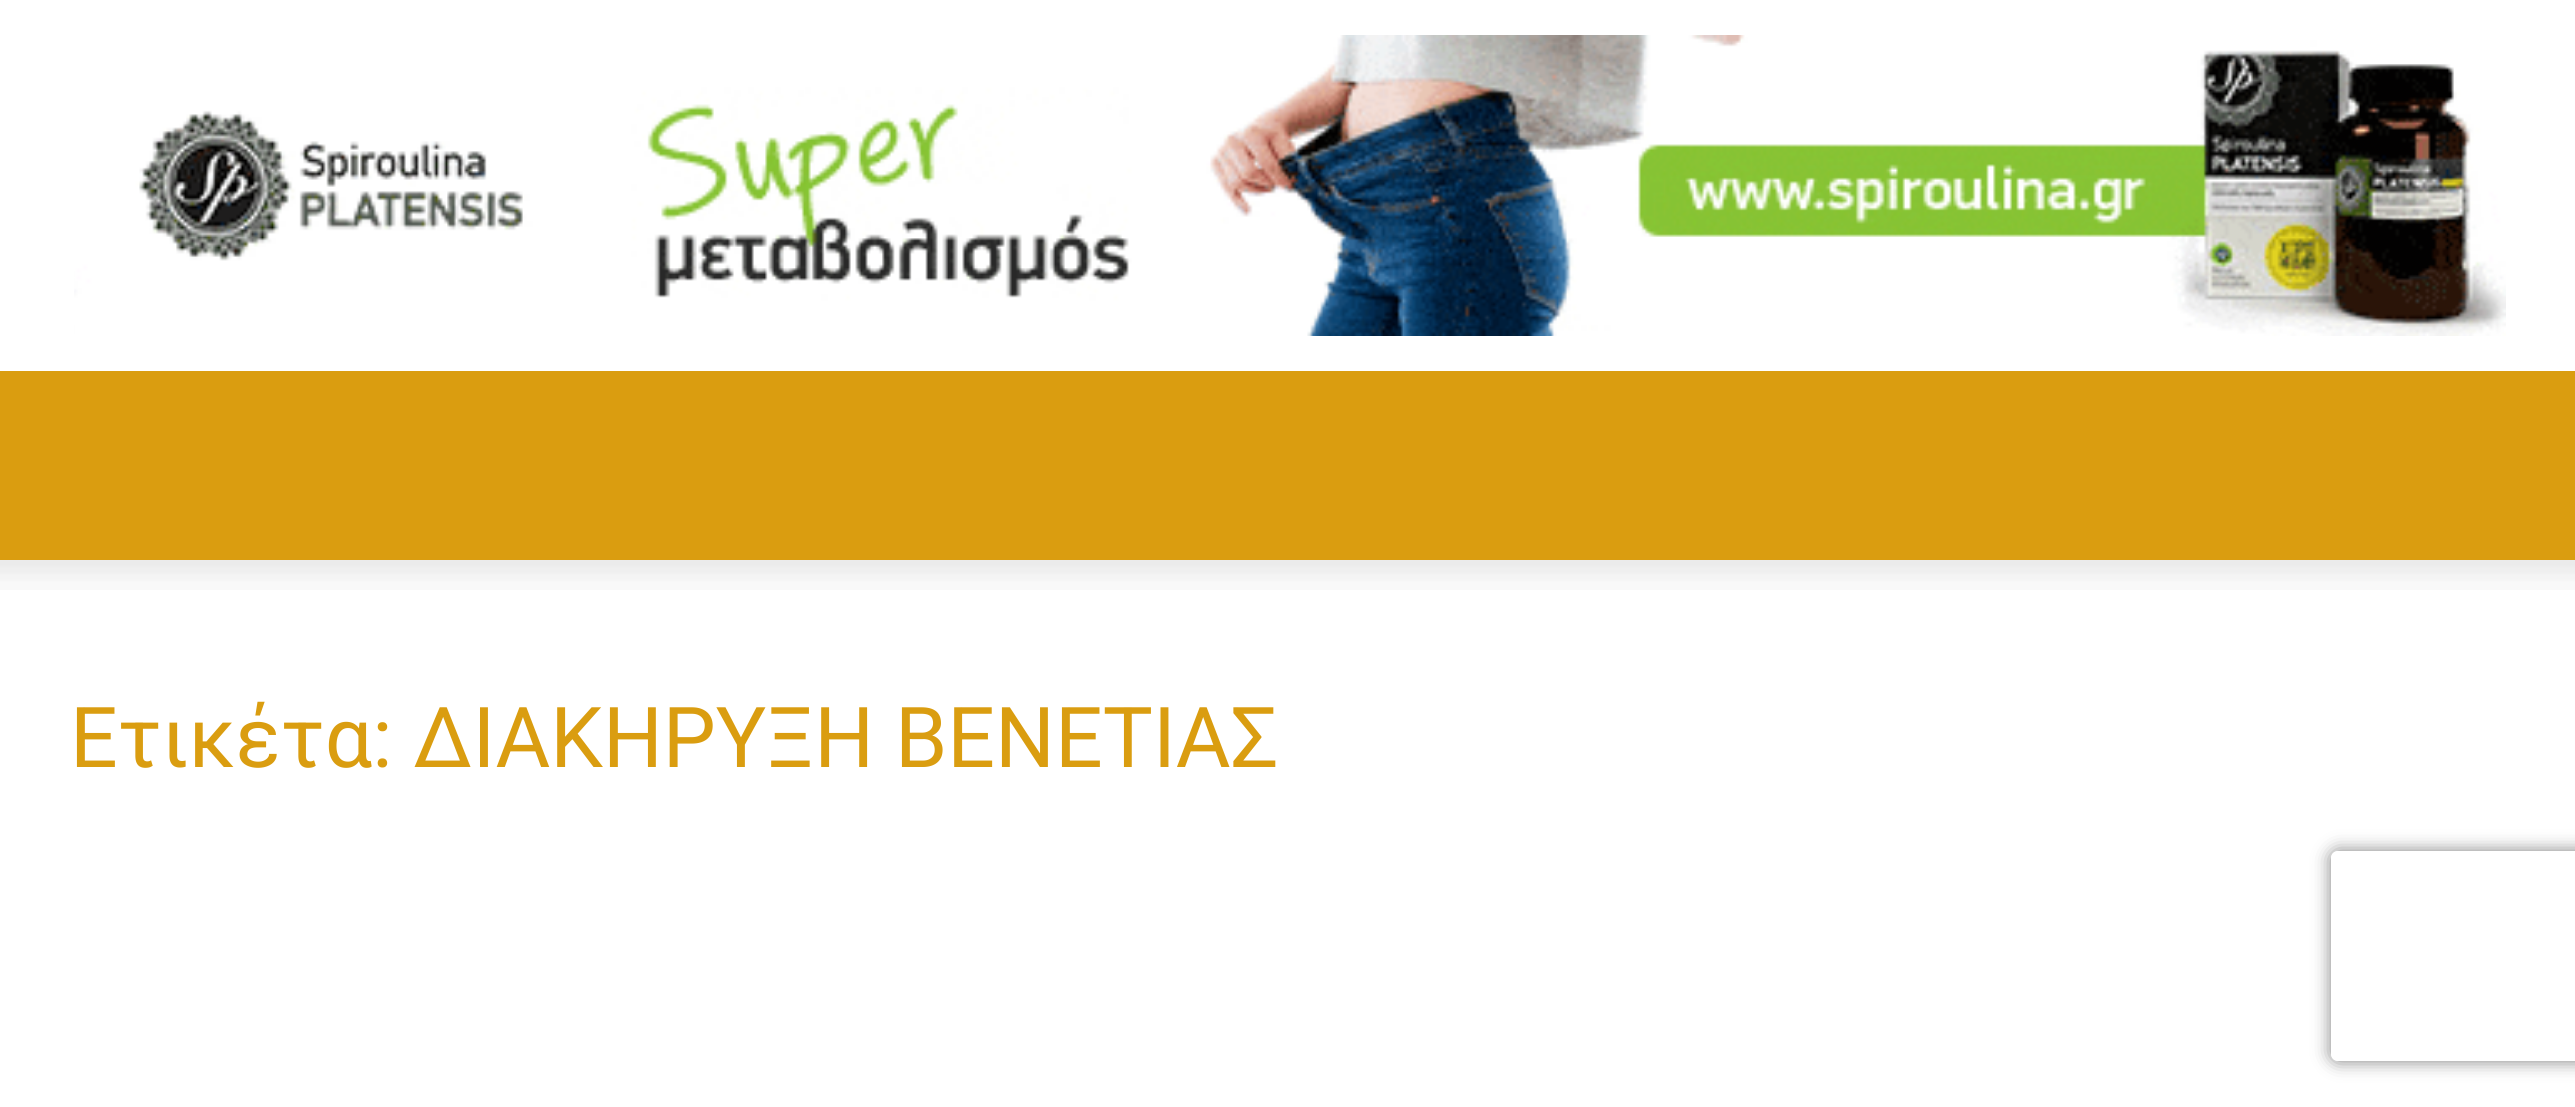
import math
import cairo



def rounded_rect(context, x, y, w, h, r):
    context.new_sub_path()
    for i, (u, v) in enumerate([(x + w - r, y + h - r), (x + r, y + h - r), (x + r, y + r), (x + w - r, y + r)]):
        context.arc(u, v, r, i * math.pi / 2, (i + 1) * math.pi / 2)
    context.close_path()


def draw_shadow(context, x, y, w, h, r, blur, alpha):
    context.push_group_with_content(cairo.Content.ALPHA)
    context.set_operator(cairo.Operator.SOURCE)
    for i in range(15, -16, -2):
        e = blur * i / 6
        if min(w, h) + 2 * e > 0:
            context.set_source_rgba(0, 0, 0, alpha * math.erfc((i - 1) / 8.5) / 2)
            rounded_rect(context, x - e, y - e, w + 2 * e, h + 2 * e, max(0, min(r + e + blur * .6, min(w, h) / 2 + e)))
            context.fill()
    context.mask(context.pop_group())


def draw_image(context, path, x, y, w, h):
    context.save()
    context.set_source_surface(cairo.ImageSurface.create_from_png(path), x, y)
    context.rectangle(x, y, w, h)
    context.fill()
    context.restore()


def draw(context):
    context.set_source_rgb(1, 1, 1)
    context.paint()
    draw_image(context, "images/1.png", 74, 35, 2432, 301)
    context.set_source_rgb(218 / 255, 157 / 255, 16 / 255)
    context.rectangle(0, 371, 2575, 189)
    context.fill()
    draw_image(context, "images/2.png", 0, 560, 2575, 30)
    context.save()
    context.set_fill_rule(cairo.FillRule.EVEN_ODD)
    context.new_path()
    context.move_to(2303, 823)
    context.line_to(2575, 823)
    context.line_to(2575, 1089)
    context.line_to(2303, 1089)
    context.close_path()
    context.move_to(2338, 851)
    context.line_to(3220, 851)
    context.curve_to(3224, 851, 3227, 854, 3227, 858)
    context.line_to(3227, 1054)
    context.curve_to(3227, 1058, 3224, 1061, 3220, 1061)
    context.line_to(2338, 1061)
    context.curve_to(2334, 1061, 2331, 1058, 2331, 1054)
    context.line_to(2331, 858)
    context.curve_to(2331, 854, 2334, 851, 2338, 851)
    context.close_path()
    context.clip()
    context.set_source_rgb(128 / 255, 128 / 255, 128 / 255)
    draw_shadow(context, 2331, 851, 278, 210, 7, 9, 1)
    context.restore()
    context.select_font_face("Roboto")
    context.set_font_size(84)
    context.move_to(70, 767)
    context.show_text("Ετικέτα: ΔΙΑΚΗΡΥΞΗ ΒΕΝΕΤΙΑΣ")


surface = cairo.ImageSurface(cairo.Format.RGB24, 2575, 1107)
context = cairo.Context(surface)
options = cairo.FontOptions()
options.set_hint_metrics(cairo.HintMetrics.OFF)
options.set_hint_style(cairo.HintStyle.NONE)
context.set_font_options(options)
context.set_miter_limit(4)
draw(context)
surface.write_to_png("out.png")
